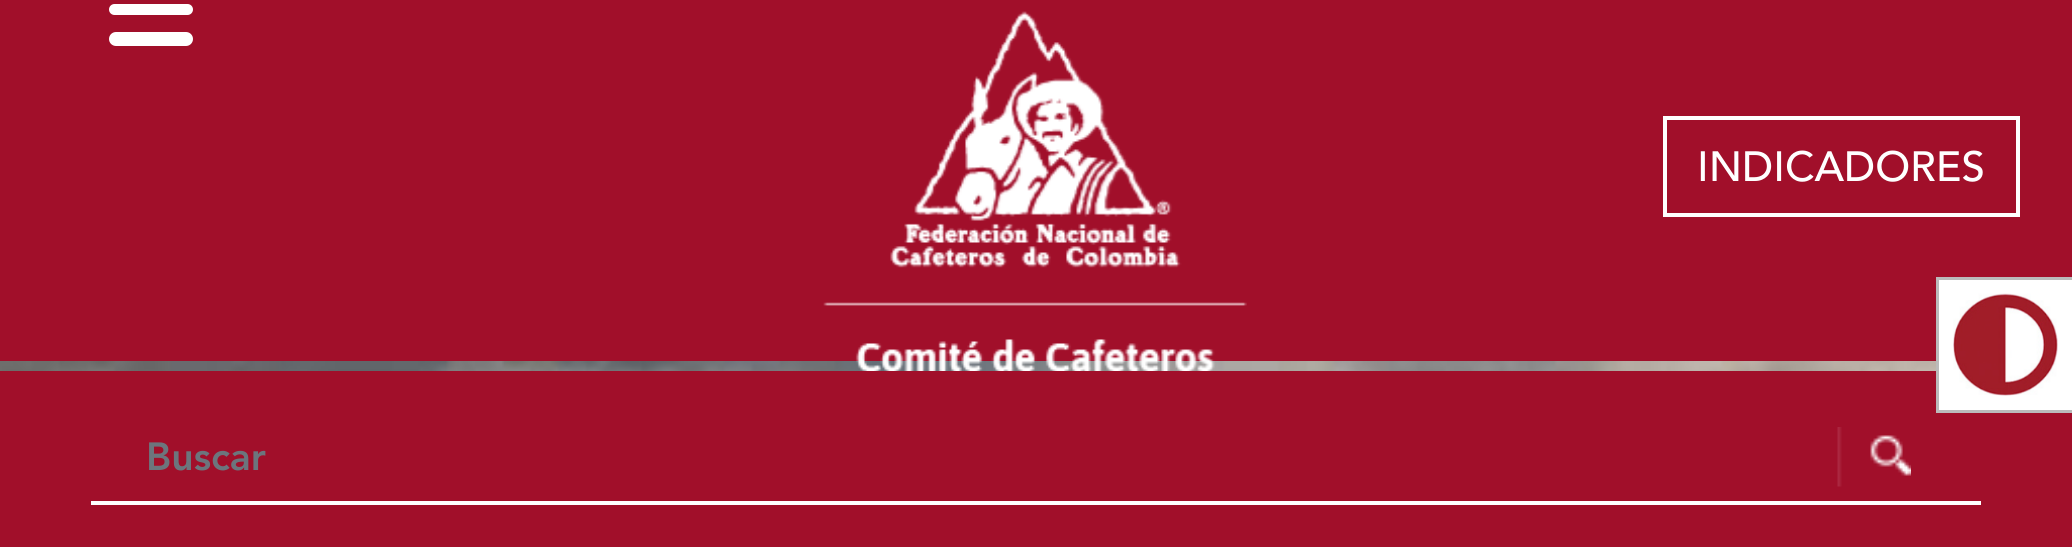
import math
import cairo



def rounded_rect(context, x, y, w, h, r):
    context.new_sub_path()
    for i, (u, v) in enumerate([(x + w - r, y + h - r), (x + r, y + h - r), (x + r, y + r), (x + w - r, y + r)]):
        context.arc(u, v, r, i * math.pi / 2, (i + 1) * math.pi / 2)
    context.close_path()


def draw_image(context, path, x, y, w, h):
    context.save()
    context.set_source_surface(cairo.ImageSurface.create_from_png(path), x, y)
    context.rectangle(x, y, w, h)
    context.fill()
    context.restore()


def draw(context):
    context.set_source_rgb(1, 1, 1)
    context.paint()
    context.set_source_rgb(161 / 255, 15 / 255, 42 / 255)
    context.rectangle(0, 0, 2072, 361)
    context.fill()
    draw_image(context, "images/4.png", 0, 361, 1936, 10)
    draw_image(context, "images/1.png", 823, 11, 424, 360)
    context.set_source_rgb(1, 1, 1)
    rounded_rect(context, 109, 4, 84, 11, 5.5)
    context.fill()
    rounded_rect(context, 109, 32, 84, 14, 7)
    context.fill()
    context.rectangle(1665, 118, 353, 97)
    context.set_line_width(4)
    context.stroke()
    context.set_source_rgb(161 / 255, 15 / 255, 42 / 255)
    context.rectangle(0, 371, 2072, 176)
    context.fill()
    draw_image(context, "images/2.png", 1837, 427, 74, 60)
    context.set_source_rgb(1, 1, 1)
    context.rectangle(91, 501, 1890, 4)
    context.fill()
    context.rectangle(1938, 279, 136, 132)
    context.set_source_rgb(187 / 255, 187 / 255, 187 / 255)
    context.stroke()
    context.set_source_rgb(1, 1, 1)
    context.rectangle(1939, 280, 133, 130)
    context.fill()
    draw_image(context, "images/3.png", 1953, 293, 105, 103)
    context.select_font_face("Avenir Medium")
    context.set_font_size(42)
    context.move_to(1697, 181)
    context.show_text("INDICADORES")
    context.select_font_face("Avenir Black")
    context.set_font_size(39)
    context.set_source_rgb(108 / 255, 117 / 255, 125 / 255)
    context.move_to(146, 470)
    context.show_text("Buscar")


surface = cairo.ImageSurface(cairo.Format.RGB24, 2072, 547)
context = cairo.Context(surface)
options = cairo.FontOptions()
options.set_hint_metrics(cairo.HintMetrics.OFF)
options.set_hint_style(cairo.HintStyle.NONE)
context.set_font_options(options)
context.set_miter_limit(4)
draw(context)
surface.write_to_png("out.png")
